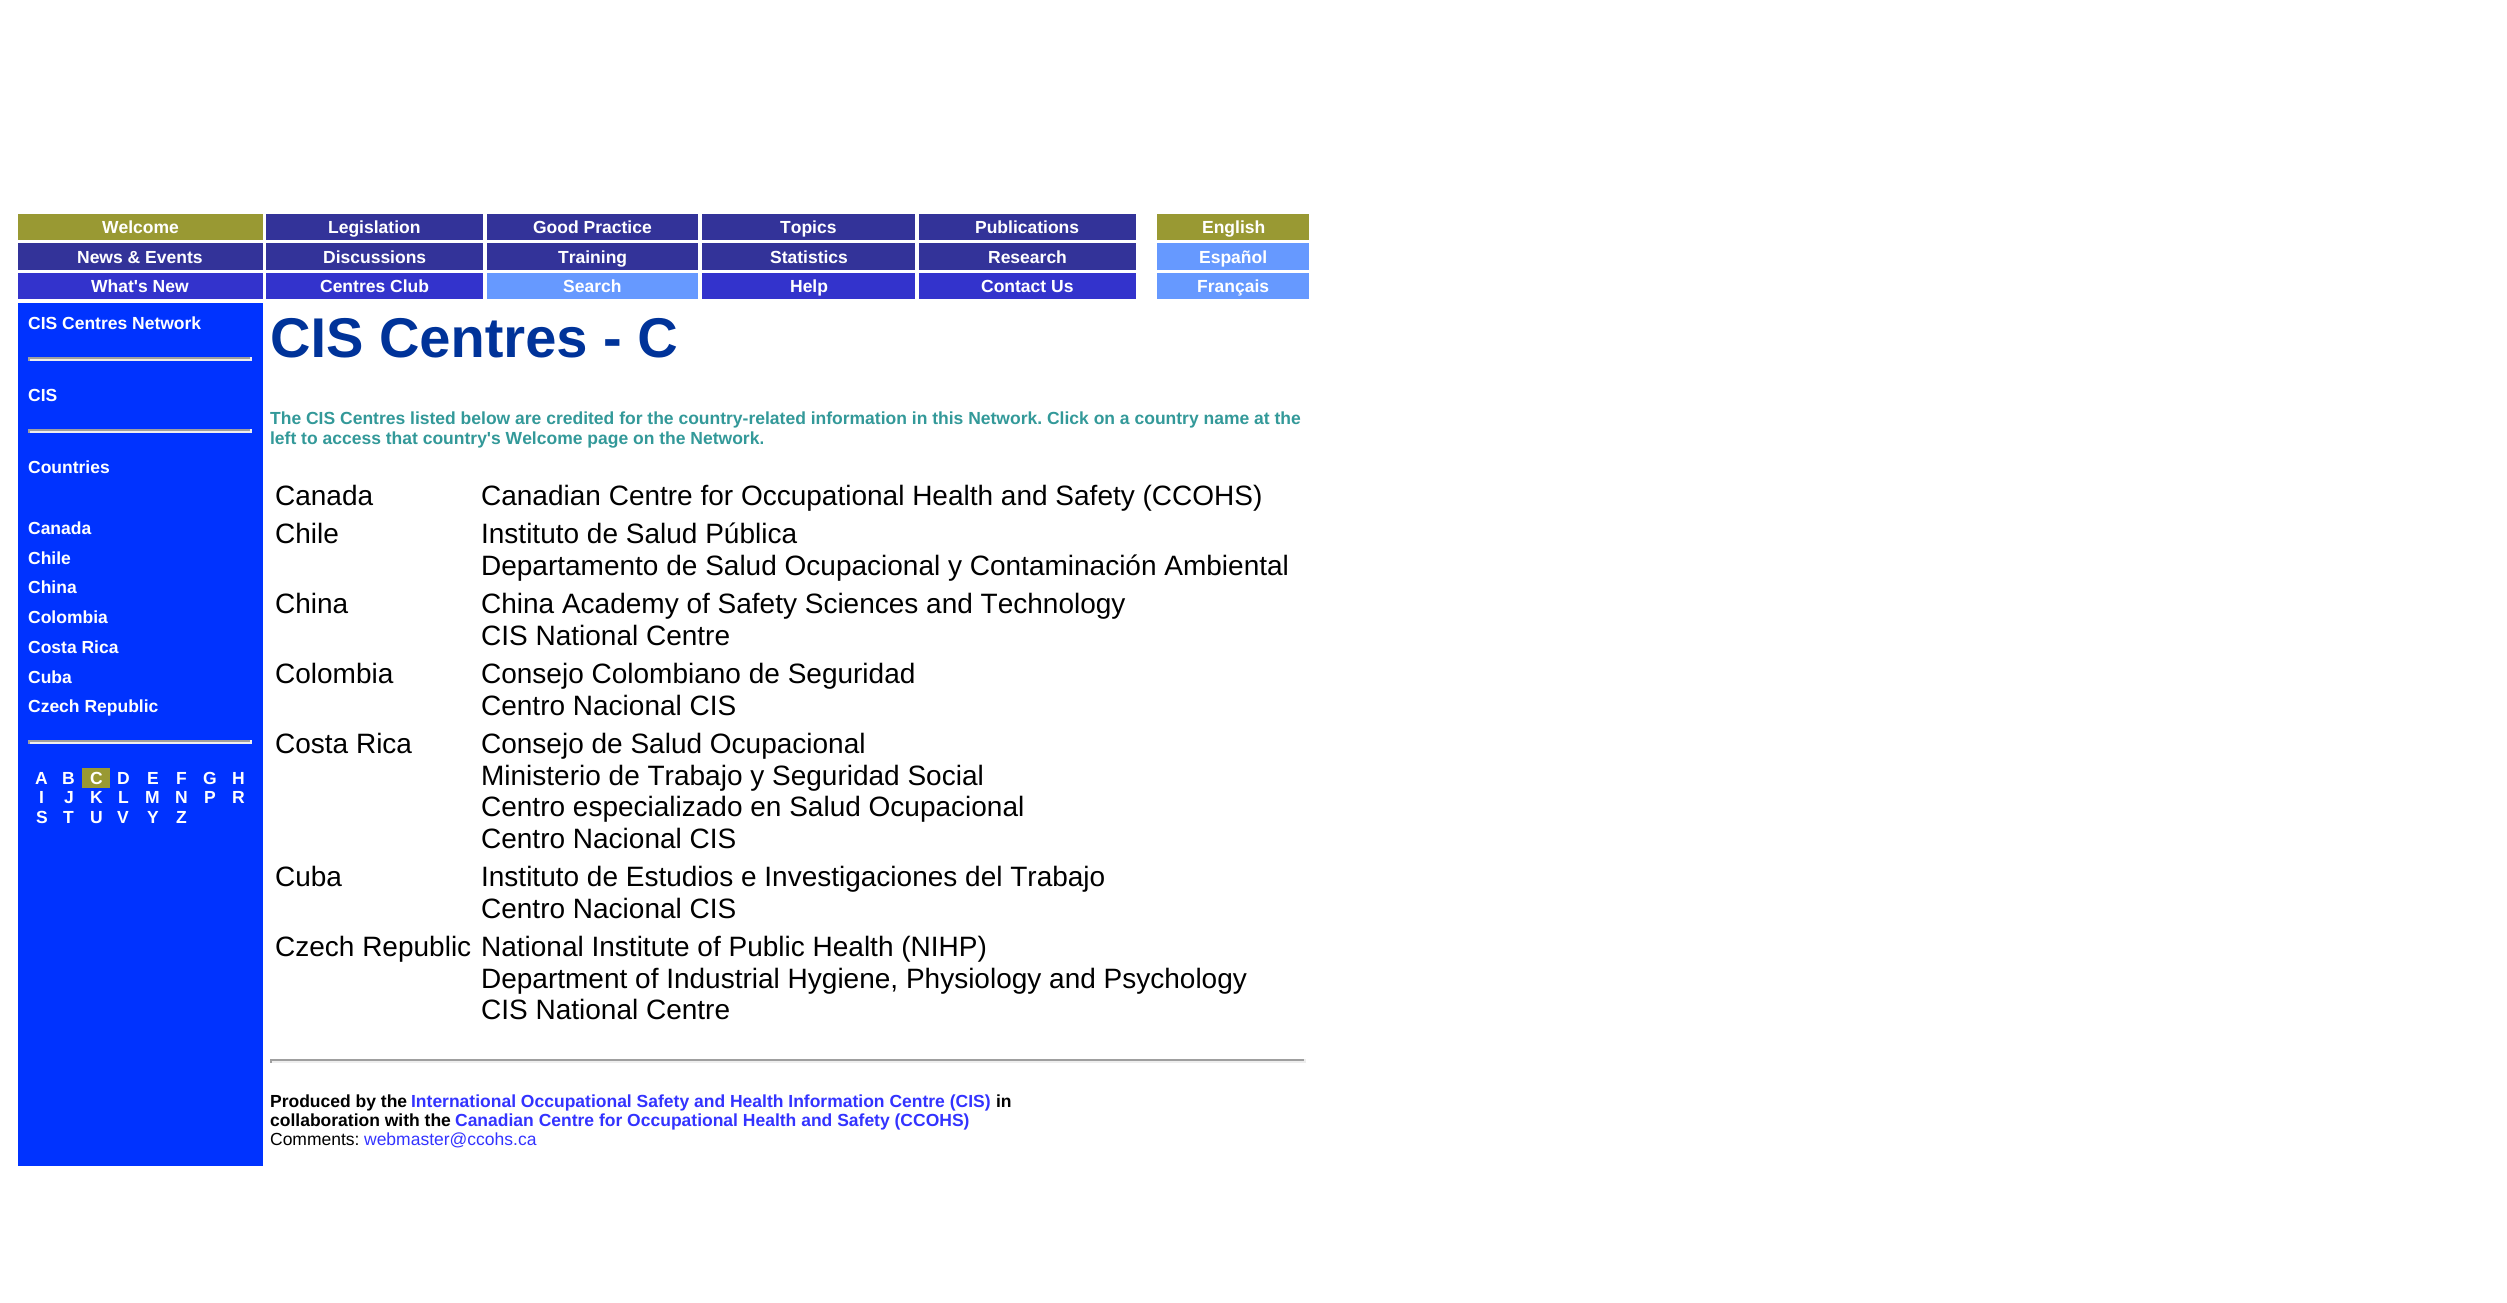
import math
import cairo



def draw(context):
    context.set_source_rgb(1, 1, 1)
    context.paint()
    context.set_source_rgb(153 / 255, 153 / 255, 51 / 255)
    context.rectangle(18, 214, 245, 26)
    context.fill()
    context.set_source_rgb(51 / 255, 51 / 255, 153 / 255)
    context.rectangle(266, 214, 217, 26)
    context.fill()
    context.rectangle(487, 214, 211, 26)
    context.fill()
    context.rectangle(702, 214, 213, 26)
    context.fill()
    context.rectangle(919, 214, 217, 26)
    context.fill()
    context.set_source_rgb(153 / 255, 153 / 255, 51 / 255)
    context.rectangle(1157, 214, 152, 26)
    context.fill()
    context.set_source_rgb(51 / 255, 51 / 255, 153 / 255)
    context.rectangle(18, 243, 245, 27)
    context.fill()
    context.rectangle(266, 243, 217, 27)
    context.fill()
    context.rectangle(487, 243, 211, 27)
    context.fill()
    context.rectangle(702, 243, 213, 27)
    context.fill()
    context.rectangle(919, 243, 217, 27)
    context.fill()
    context.set_source_rgb(102 / 255, 153 / 255, 1)
    context.rectangle(1157, 243, 152, 27)
    context.fill()
    context.set_source_rgb(51 / 255, 51 / 255, 204 / 255)
    context.rectangle(18, 273, 245, 26)
    context.fill()
    context.rectangle(266, 273, 217, 26)
    context.fill()
    context.set_source_rgb(102 / 255, 153 / 255, 1)
    context.rectangle(487, 273, 211, 26)
    context.fill()
    context.set_source_rgb(51 / 255, 51 / 255, 204 / 255)
    context.rectangle(702, 273, 213, 26)
    context.fill()
    context.rectangle(919, 273, 217, 26)
    context.fill()
    context.set_source_rgb(102 / 255, 153 / 255, 1)
    context.rectangle(1157, 273, 152, 26)
    context.fill()
    context.set_source_rgb(0, 51 / 255, 1)
    context.rectangle(18, 303, 245, 863)
    context.fill()
    context.set_source_rgb(159 / 255, 159 / 255, 159 / 255)
    context.rectangle(28, 357, 224, 2)
    context.fill()
    context.set_source_rgb(238 / 255, 238 / 255, 238 / 255)
    context.rectangle(250, 357, 2, 4)
    context.fill()
    context.rectangle(28, 359, 224, 2)
    context.fill()
    context.set_source_rgb(159 / 255, 159 / 255, 159 / 255)
    context.rectangle(28, 357, 2, 4)
    context.fill()
    context.rectangle(28, 429, 224, 2)
    context.fill()
    context.set_source_rgb(238 / 255, 238 / 255, 238 / 255)
    context.rectangle(250, 429, 2, 4)
    context.fill()
    context.rectangle(28, 431, 224, 2)
    context.fill()
    context.set_source_rgb(159 / 255, 159 / 255, 159 / 255)
    context.rectangle(28, 429, 2, 4)
    context.fill()
    context.rectangle(28, 740, 224, 2)
    context.fill()
    context.set_source_rgb(238 / 255, 238 / 255, 238 / 255)
    context.rectangle(250, 740, 2, 4)
    context.fill()
    context.rectangle(28, 742, 224, 2)
    context.fill()
    context.set_source_rgb(159 / 255, 159 / 255, 159 / 255)
    context.rectangle(28, 740, 2, 4)
    context.fill()
    context.set_source_rgb(153 / 255, 153 / 255, 51 / 255)
    context.rectangle(82, 768, 28, 20)
    context.fill()
    context.set_source_rgb(159 / 255, 159 / 255, 159 / 255)
    context.rectangle(270, 1059, 1036, 2)
    context.fill()
    context.set_source_rgb(238 / 255, 238 / 255, 238 / 255)
    context.rectangle(1304, 1059, 2, 4)
    context.fill()
    context.rectangle(270, 1061, 1036, 2)
    context.fill()
    context.set_source_rgb(159 / 255, 159 / 255, 159 / 255)
    context.rectangle(270, 1059, 2, 4)
    context.fill()
    context.select_font_face("Liberation Sans", cairo.FontSlant.NORMAL, cairo.FontWeight.BOLD)
    context.set_font_size(17.5)
    context.set_source_rgb(1, 1, 1)
    context.move_to(102, 233)
    context.show_text("Welcome")
    context.move_to(328, 233)
    context.show_text("Legislation")
    context.move_to(533, 233)
    context.show_text("Good Practice")
    context.move_to(780, 233)
    context.show_text("Topics")
    context.move_to(975, 233)
    context.show_text("Publications")
    context.move_to(1202, 233)
    context.show_text("English")
    context.move_to(77, 263)
    context.show_text("News & Events")
    context.move_to(323, 263)
    context.show_text("Discussions")
    context.move_to(558, 263)
    context.show_text("Training")
    context.move_to(770, 263)
    context.show_text("Statistics")
    context.move_to(988, 263)
    context.show_text("Research")
    context.move_to(1199, 263)
    context.show_text("Español")
    context.move_to(91, 292)
    context.show_text("What's New")
    context.move_to(320, 292)
    context.show_text("Centres Club")
    context.move_to(563, 292)
    context.show_text("Search")
    context.move_to(790, 292)
    context.show_text("Help")
    context.move_to(981, 292)
    context.show_text("Contact Us")
    context.move_to(1197, 292)
    context.show_text("Français")
    context.move_to(28, 329)
    context.show_text("CIS Centres Network")
    context.move_to(28, 401)
    context.show_text("CIS")
    context.move_to(28, 473)
    context.show_text("Countries")
    context.move_to(28, 534)
    context.show_text("Canada")
    context.move_to(28, 564)
    context.show_text("Chile")
    context.move_to(28, 593)
    context.show_text("China")
    context.move_to(28, 623)
    context.show_text("Colombia")
    context.move_to(28, 653)
    context.show_text("Costa Rica")
    context.move_to(28, 683)
    context.show_text("Cuba")
    context.move_to(28, 712)
    context.show_text("Czech Republic")
    context.move_to(35, 784)
    context.show_text("A")
    context.move_to(62, 784)
    context.show_text("B")
    context.move_to(90, 784)
    context.show_text("C")
    context.move_to(117, 784)
    context.show_text("D")
    context.move_to(147, 784)
    context.show_text("E")
    context.move_to(176, 784)
    context.show_text("F")
    context.move_to(203, 784)
    context.show_text("G")
    context.move_to(232, 784)
    context.show_text("H")
    context.move_to(39, 803)
    context.show_text("I")
    context.move_to(64, 803)
    context.show_text("J")
    context.move_to(90, 803)
    context.show_text("K")
    context.move_to(118, 803)
    context.show_text("L")
    context.move_to(145, 803)
    context.show_text("M")
    context.move_to(175, 803)
    context.show_text("N")
    context.move_to(204, 803)
    context.show_text("P")
    context.move_to(232, 803)
    context.show_text("R")
    context.move_to(36, 823)
    context.show_text("S")
    context.move_to(63, 823)
    context.show_text("T")
    context.move_to(90, 823)
    context.show_text("U")
    context.move_to(117, 823)
    context.show_text("V")
    context.move_to(147, 823)
    context.show_text("Y")
    context.move_to(176, 823)
    context.show_text("Z")
    context.set_font_size(56)
    context.set_source_rgb(0, 51 / 255, 153 / 255)
    context.move_to(270, 357)
    context.show_text("CIS Centres - C")
    context.set_font_size(17.5)
    context.set_source_rgb(51 / 255, 153 / 255, 153 / 255)
    context.move_to(270, 424)
    context.show_text("The CIS Centres listed below are credited for the country-related information in this Network. Click on a country name at the")
    context.move_to(270, 444)
    context.show_text("left to access that country's Welcome page on the Network.")
    context.select_font_face("Liberation Sans")
    context.set_font_size(28)
    context.set_source_rgb(0, 0, 0)
    context.move_to(275, 505)
    context.show_text("Canada")
    context.move_to(481, 505)
    context.show_text("Canadian Centre for Occupational Health and Safety (CCOHS)")
    context.move_to(275, 543)
    context.show_text("Chile")
    context.move_to(481, 543)
    context.show_text("Instituto de Salud Pública")
    context.move_to(481, 575)
    context.show_text("Departamento de Salud Ocupacional y Contaminación Ambiental")
    context.move_to(275, 613)
    context.show_text("China")
    context.move_to(481, 613)
    context.show_text("China Academy of Safety Sciences and Technology")
    context.move_to(481, 645)
    context.show_text("CIS National Centre")
    context.move_to(275, 683)
    context.show_text("Colombia")
    context.move_to(481, 683)
    context.show_text("Consejo Colombiano de Seguridad")
    context.move_to(481, 715)
    context.show_text("Centro Nacional CIS")
    context.move_to(275, 753)
    context.show_text("Costa Rica")
    context.move_to(481, 753)
    context.show_text("Consejo de Salud Ocupacional")
    context.move_to(481, 785)
    context.show_text("Ministerio de Trabajo y Seguridad Social")
    context.move_to(481, 816)
    context.show_text("Centro especializado en Salud Ocupacional")
    context.move_to(481, 848)
    context.show_text("Centro Nacional CIS")
    context.move_to(275, 886)
    context.show_text("Cuba")
    context.move_to(481, 886)
    context.show_text("Instituto de Estudios e Investigaciones del Trabajo")
    context.move_to(481, 918)
    context.show_text("Centro Nacional CIS")
    context.move_to(275, 956)
    context.show_text("Czech Republic")
    context.move_to(481, 956)
    context.show_text("National Institute of Public Health (NIHP)")
    context.move_to(481, 988)
    context.show_text("Department of Industrial Hygiene, Physiology and Psychology")
    context.move_to(481, 1019)
    context.show_text("CIS National Centre")
    context.select_font_face("Liberation Sans", cairo.FontSlant.NORMAL, cairo.FontWeight.BOLD)
    context.set_font_size(17.5)
    context.move_to(270, 1107)
    context.show_text("Produced by the")
    context.set_source_rgb(51 / 255, 51 / 255, 1)
    context.move_to(411, 1107)
    context.show_text("International Occupational Safety and Health Information Centre (CIS)")
    context.set_source_rgb(0, 0, 0)
    context.move_to(996, 1107)
    context.show_text("in")
    context.move_to(270, 1126)
    context.show_text("collaboration with the")
    context.set_source_rgb(51 / 255, 51 / 255, 1)
    context.move_to(455, 1126)
    context.show_text("Canadian Centre for Occupational Health and Safety (CCOHS)")
    context.select_font_face("Liberation Sans")
    context.set_source_rgb(0, 0, 0)
    context.move_to(270, 1145)
    context.show_text("Comments:")
    context.set_source_rgb(51 / 255, 51 / 255, 1)
    context.move_to(364, 1145)
    context.show_text("webmaster@ccohs.ca")


surface = cairo.ImageSurface(cairo.Format.RGB24, 2507, 1303)
context = cairo.Context(surface)
options = cairo.FontOptions()
options.set_hint_metrics(cairo.HintMetrics.OFF)
options.set_hint_style(cairo.HintStyle.NONE)
context.set_font_options(options)
context.set_miter_limit(4)
draw(context)
surface.write_to_png("out.png")
